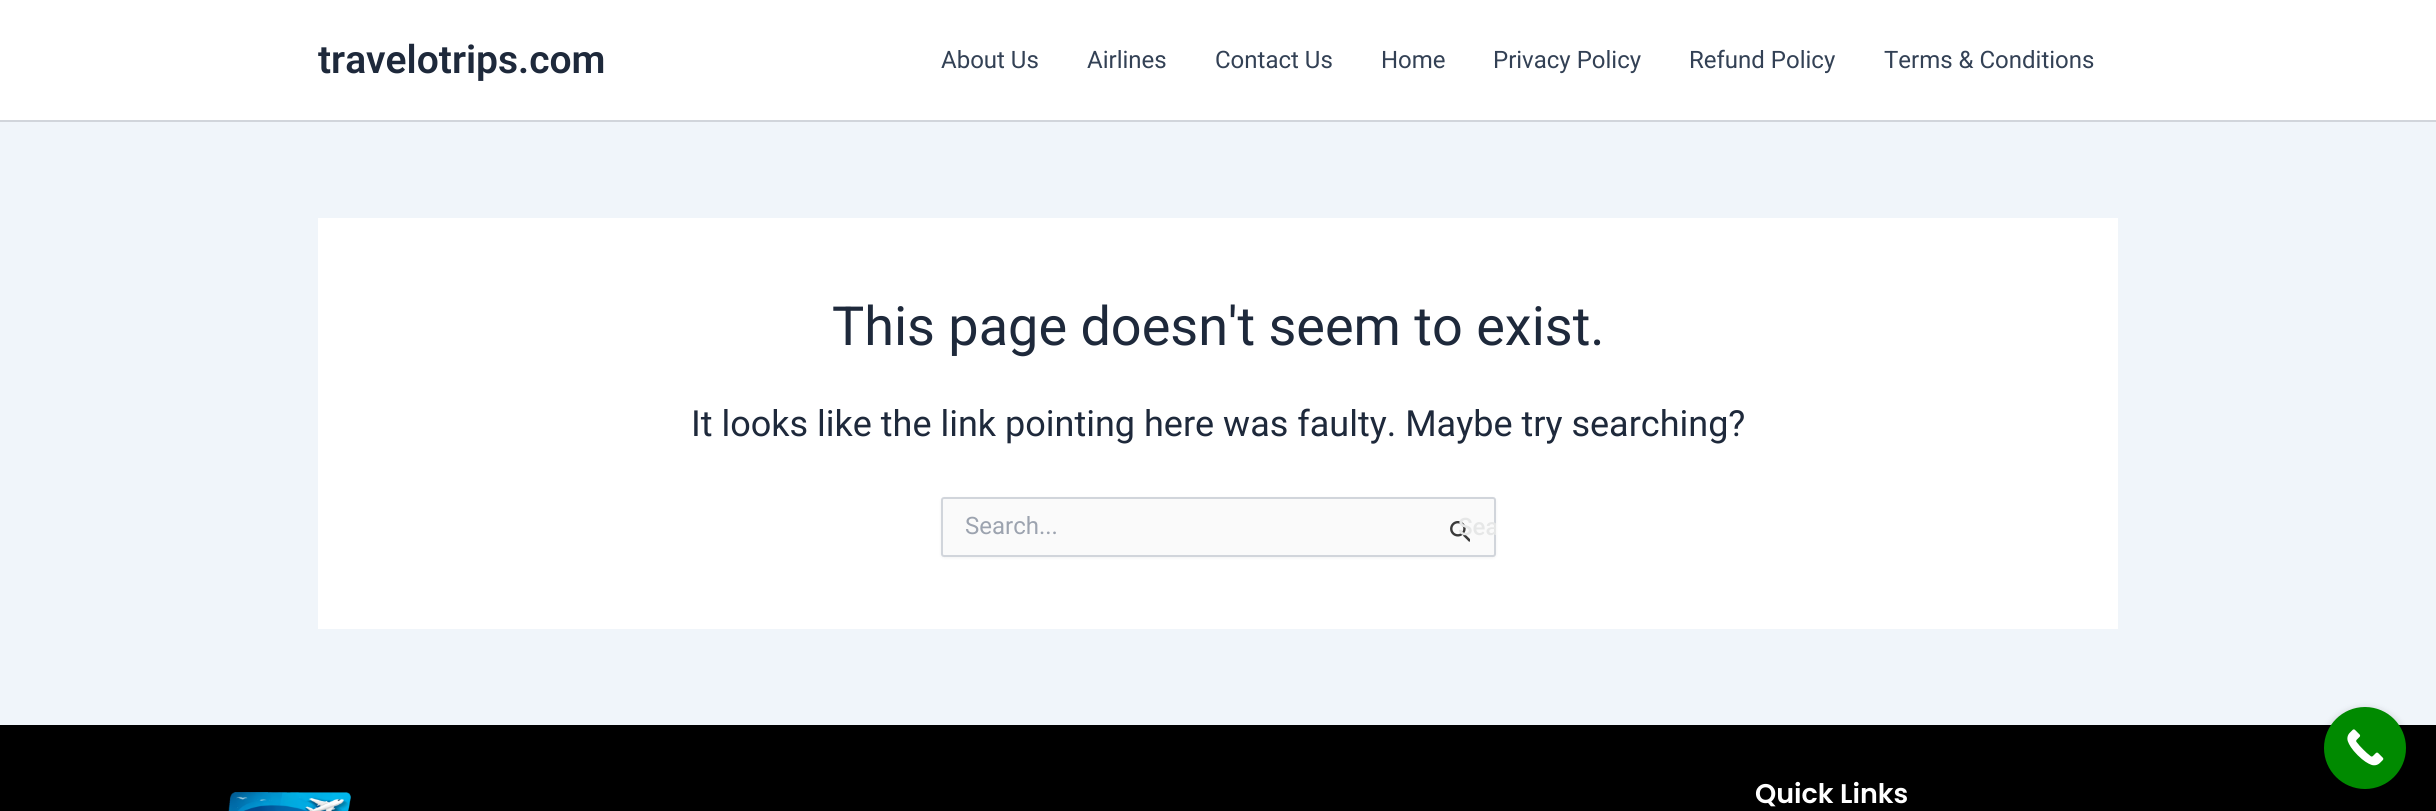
import math
import cairo



def rounded_rect(context, x, y, w, h, r):
    context.new_sub_path()
    for i, (u, v) in enumerate([(x + w - r, y + h - r), (x + r, y + h - r), (x + r, y + r), (x + w - r, y + r)]):
        context.arc(u, v, r, i * math.pi / 2, (i + 1) * math.pi / 2)
    context.close_path()


def draw_shadow(context, x, y, w, h, r, blur, alpha):
    context.push_group_with_content(cairo.Content.ALPHA)
    context.set_operator(cairo.Operator.SOURCE)
    for i in range(15, -16, -2):
        e = blur * i / 6
        if min(w, h) + 2 * e > 0:
            context.set_source_rgba(0, 0, 0, alpha * math.erfc((i - 1) / 8.5) / 2)
            rounded_rect(context, x - e, y - e, w + 2 * e, h + 2 * e, max(0, min(r + e + blur * .6, min(w, h) / 2 + e)))
            context.fill()
    context.mask(context.pop_group())


def draw_image(context, path, x, y, w, h):
    context.save()
    context.set_source_surface(cairo.ImageSurface.create_from_png(path), x, y)
    context.rectangle(x, y, w, h)
    context.fill()
    context.restore()


def draw(context):
    context.set_source_rgb(240 / 255, 245 / 255, 250 / 255)
    context.paint()
    context.set_source_rgb(1, 1, 1)
    context.rectangle(0, 0, 2436, 120)
    context.fill()
    context.set_source_rgb(209 / 255, 213 / 255, 219 / 255)
    context.rectangle(0, 120, 2436, 2)
    context.fill()
    context.set_source_rgb(1, 1, 1)
    context.rectangle(318, 218, 1800, 411)
    context.fill()
    context.set_source_rgb(0, 0, 0)
    draw_shadow(context, 941, 498, 555, 60, 3, 1.5, 0.05)
    context.set_source_rgb(250 / 255, 250 / 255, 250 / 255)
    rounded_rect(context, 942, 498, 553, 58, 2)
    context.fill_preserve()
    context.set_source_rgb(209 / 255, 213 / 255, 219 / 255)
    context.stroke()
    draw_image(context, "images/1.png", 1450, 521, 20, 21)
    context.set_source_rgb(0, 0, 0)
    context.rectangle(0, 725, 2436, 86)
    context.fill()
    draw_image(context, "images/2.png", 228, 792, 123, 19)
    context.set_source_rgb(0, 0, 0)
    draw_shadow(context, 2324, 711, 82, 83, 41, 4.5, 0.3)
    context.set_source_rgb(0, 138 / 255, 0)
    context.arc(2365, 748, 41, 0, 2 * math.pi)
    context.fill()
    draw_image(context, "images/3.png", 2347, 729, 37, 37)
    context.select_font_face("Roboto SemiBold")
    context.set_font_size(39)
    context.set_source_rgb(30 / 255, 41 / 255, 59 / 255)
    context.move_to(318, 73)
    context.show_text("travelotrips.com")
    context.select_font_face("Roboto")
    context.set_font_size(24)
    context.set_source_rgb(51 / 255, 65 / 255, 85 / 255)
    context.move_to(941, 68)
    context.show_text("About Us")
    context.move_to(1087, 68)
    context.show_text("Airlines")
    context.move_to(1215, 68)
    context.show_text("Contact Us")
    context.move_to(1381, 68)
    context.show_text("Home")
    context.move_to(1493, 68)
    context.show_text("Privacy Policy")
    context.move_to(1689, 68)
    context.show_text("Refund Policy")
    context.move_to(1884, 68)
    context.show_text("Terms & Conditions")
    context.set_font_size(54)
    context.set_source_rgb(30 / 255, 41 / 255, 59 / 255)
    context.move_to(832, 345)
    context.show_text("This page doesn't seem to exist.")
    context.set_font_size(36)
    context.move_to(691, 436)
    context.show_text("It looks like the link pointing here was faulty. Maybe try searching?")
    context.set_font_size(24)
    context.set_source_rgb(156 / 255, 163 / 255, 175 / 255)
    context.move_to(965, 534)
    context.show_text("Search...")
    context.save()
    rounded_rect(context, 1428, 497, 68, 63, 3)
    context.clip()
    context.select_font_face("Roboto Medium")
    context.set_source_rgb(230 / 255, 231 / 255, 231 / 255)
    context.move_to(1458, 535)
    context.show_text("Sea")
    context.restore()
    context.select_font_face("Poppins SemiBold")
    context.set_font_size(27)
    context.set_source_rgb(1, 1, 1)
    context.move_to(1755, 803)
    context.show_text("Quick Links")


surface = cairo.ImageSurface(cairo.Format.RGB24, 2436, 811)
context = cairo.Context(surface)
options = cairo.FontOptions()
options.set_hint_metrics(cairo.HintMetrics.OFF)
options.set_hint_style(cairo.HintStyle.NONE)
context.set_font_options(options)
context.set_miter_limit(4)
draw(context)
surface.write_to_png("out.png")
